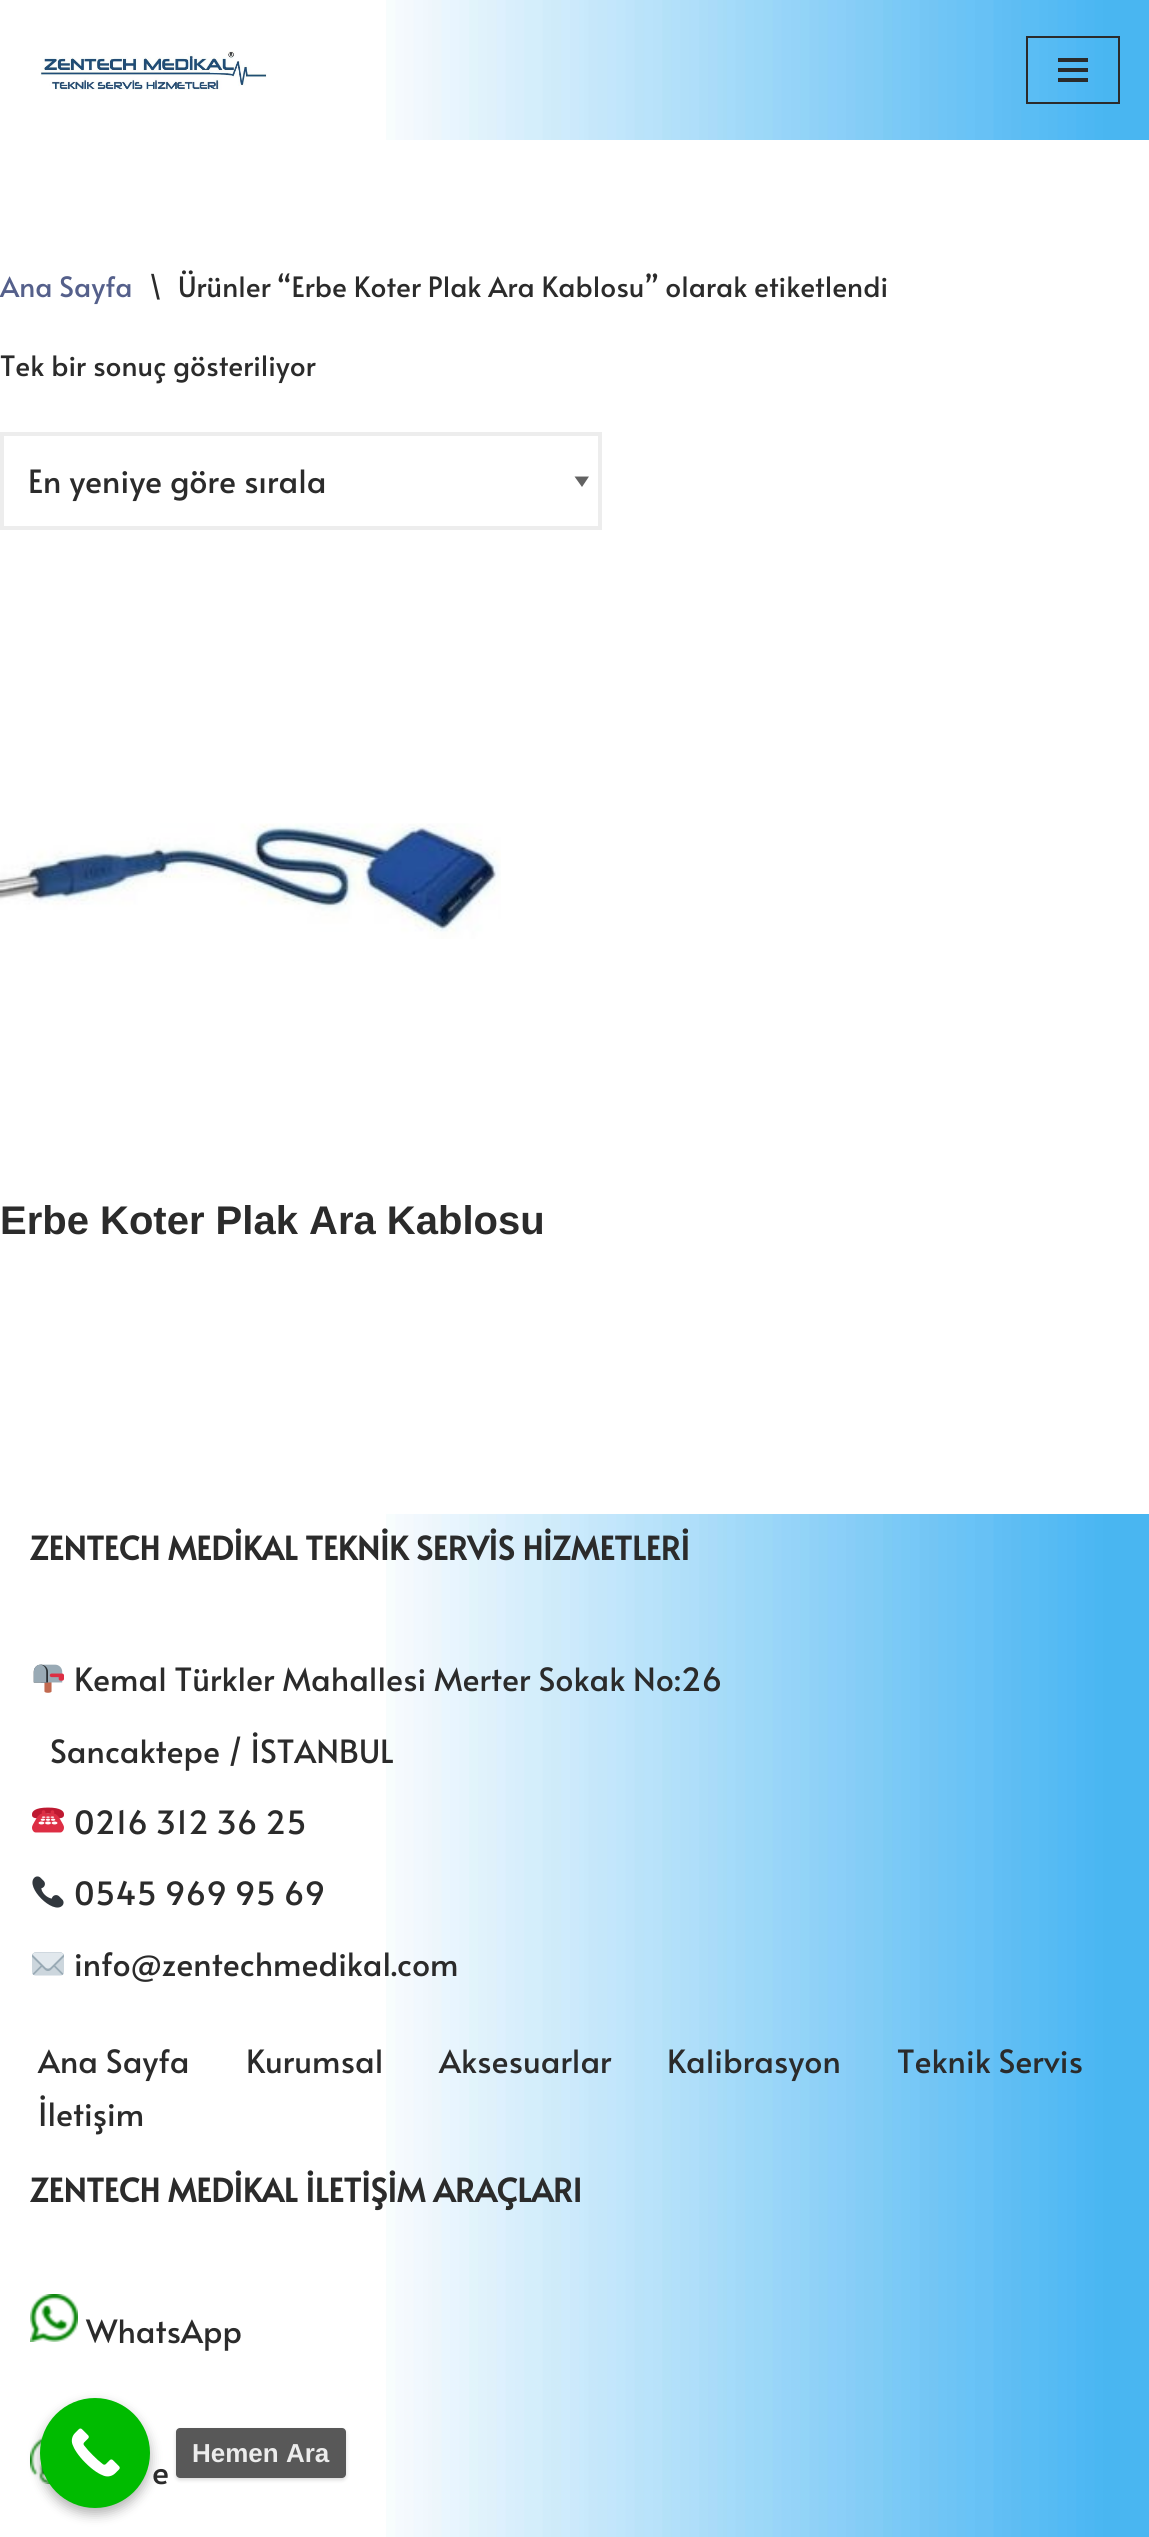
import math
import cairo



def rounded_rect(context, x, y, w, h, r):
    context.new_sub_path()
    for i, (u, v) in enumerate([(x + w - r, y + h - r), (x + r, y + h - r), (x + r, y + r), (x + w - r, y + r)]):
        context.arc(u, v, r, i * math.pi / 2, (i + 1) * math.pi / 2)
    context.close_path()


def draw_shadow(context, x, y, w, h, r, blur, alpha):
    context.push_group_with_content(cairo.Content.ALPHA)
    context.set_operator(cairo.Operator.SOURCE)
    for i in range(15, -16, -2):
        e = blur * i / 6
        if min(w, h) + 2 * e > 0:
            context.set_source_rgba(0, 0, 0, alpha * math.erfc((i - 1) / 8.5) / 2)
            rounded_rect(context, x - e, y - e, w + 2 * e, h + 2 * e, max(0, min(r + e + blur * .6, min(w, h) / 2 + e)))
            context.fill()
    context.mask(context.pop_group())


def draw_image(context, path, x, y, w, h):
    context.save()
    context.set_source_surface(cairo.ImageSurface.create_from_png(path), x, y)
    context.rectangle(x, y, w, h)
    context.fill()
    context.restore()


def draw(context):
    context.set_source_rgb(1, 1, 1)
    context.paint()
    draw_image(context, "images/1.png", 386, 0, 763, 140)
    draw_image(context, "images/2.png", 40, 51, 227, 39)
    context.rectangle(1027, 37, 92, 66)
    context.set_source_rgb(43 / 255, 43 / 255, 43 / 255)
    context.stroke()
    context.rectangle(1058, 58, 30, 4)
    context.fill()
    context.rectangle(1058, 68, 30, 4)
    context.fill()
    context.rectangle(1058, 78, 30, 4)
    context.fill()
    context.set_source_rgb(98 / 255, 98 / 255, 98 / 255)
    context.new_path()
    context.move_to(589, 476.5)
    context.line_to(582, 487)
    context.line_to(574.5, 476.5)
    context.close_path()
    context.fill()
    context.rectangle(2, 434, 598, 94)
    context.set_source_rgb(237 / 255, 237 / 255, 237 / 255)
    context.set_line_width(4)
    context.stroke()
    draw_image(context, "images/3.png", 0, 823, 501, 116)
    draw_image(context, "images/4.png", 386, 1514, 763, 1023)
    draw_image(context, "images/5.png", 33, 1664, 31, 29)
    draw_image(context, "images/6.png", 32, 1807, 32, 26)
    draw_image(context, "images/7.png", 32, 1876, 32, 32)
    draw_image(context, "images/8.png", 32, 1952, 32, 24)
    draw_image(context, "images/9.png", 30, 2294, 48, 48)
    draw_image(context, "images/10.png", 30, 2437, 20, 47)
    context.set_source_rgb(0, 0, 0)
    draw_shadow(context, 40, 2404, 110, 110, 55, 6, 0.3)
    context.set_source_rgb(0, 187 / 255, 0)
    context.arc(95, 2453, 55, 0, 2 * math.pi)
    context.fill()
    draw_image(context, "images/11.png", 71, 2428, 49, 49)
    context.save()
    context.set_fill_rule(cairo.FillRule.EVEN_ODD)
    context.new_path()
    context.move_to(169, 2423)
    context.line_to(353, 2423)
    context.line_to(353, 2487)
    context.line_to(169, 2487)
    context.close_path()
    context.move_to(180, 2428)
    context.line_to(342, 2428)
    context.curve_to(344, 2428, 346, 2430, 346, 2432)
    context.line_to(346, 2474)
    context.curve_to(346, 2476, 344, 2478, 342, 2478)
    context.line_to(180, 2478)
    context.curve_to(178, 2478, 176, 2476, 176, 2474)
    context.line_to(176, 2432)
    context.curve_to(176, 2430, 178, 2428, 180, 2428)
    context.close_path()
    context.clip()
    context.set_source_rgb(0, 0, 0)
    draw_shadow(context, 176, 2430, 170, 50, 4, 2, 0.15)
    context.restore()
    context.set_source_rgba(70 / 255, 70 / 255, 70 / 255, 0.9)
    rounded_rect(context, 176, 2428, 170, 50, 4)
    context.fill()
    context.select_font_face("Alata")
    context.set_font_size(28)
    context.set_source_rgb(85 / 255, 96 / 255, 139 / 255)
    context.move_to(0, 297)
    context.show_text("Ana Sayfa")
    context.set_source_rgb(43 / 255, 43 / 255, 43 / 255)
    context.move_to(149, 297)
    context.show_text("\\")
    context.move_to(178, 297)
    context.show_text("Ürünler “Erbe Koter Plak Ara Kablosu” olarak etiketlendi")
    context.move_to(0, 376)
    context.show_text("Tek bir sonuç gösteriliyor")
    context.set_font_size(32)
    context.move_to(28, 493)
    context.show_text("En yeniye göre sırala")
    context.select_font_face("Liberation Sans", cairo.FontSlant.NORMAL, cairo.FontWeight.BOLD)
    context.set_font_size(40)
    context.move_to(0, 1234)
    context.show_text("Erbe Koter Plak Ara Kablosu")
    context.select_font_face("Alata", cairo.FontSlant.NORMAL, cairo.FontWeight.BOLD)
    context.set_font_size(32)
    context.move_to(30, 1560)
    context.show_text("ZENTECH MEDİKAL TEKNİK SERVİS HİZMETLERİ")
    context.select_font_face("Alata")
    context.move_to(74, 1691)
    context.show_text("Kemal Türkler Mahallesi Merter Sokak No:26")
    context.move_to(50, 1763)
    context.show_text("Sancaktepe / İSTANBUL")
    context.move_to(74, 1834)
    context.show_text("0216 312 36 25")
    context.move_to(74, 1905)
    context.show_text("0545 969 95 69")
    context.move_to(74, 1976)
    context.show_text("info@zentechmedikal.com")
    context.move_to(38, 2073)
    context.show_text("Ana Sayfa")
    context.move_to(246, 2073)
    context.show_text("Kurumsal")
    context.move_to(439, 2073)
    context.show_text("Aksesuarlar")
    context.move_to(667, 2073)
    context.show_text("Kalibrasyon")
    context.move_to(897, 2073)
    context.show_text("Teknik Servis")
    context.move_to(38, 2126)
    context.show_text("İletişim")
    context.select_font_face("Alata", cairo.FontSlant.NORMAL, cairo.FontWeight.BOLD)
    context.move_to(30, 2202)
    context.show_text("ZENTECH MEDİKAL İLETİŞİM ARAÇLARI")
    context.select_font_face("Alata")
    context.move_to(86, 2343)
    context.show_text("WhatsApp")
    context.move_to(152, 2484)
    context.show_text("e")
    context.select_font_face("Liberation Sans", cairo.FontSlant.NORMAL, cairo.FontWeight.BOLD)
    context.set_font_size(26)
    context.set_source_rgb(236 / 255, 236 / 255, 236 / 255)
    context.move_to(192, 2462)
    context.show_text("Hemen Ara")


surface = cairo.ImageSurface(cairo.Format.RGB24, 1149, 2537)
context = cairo.Context(surface)
options = cairo.FontOptions()
options.set_hint_metrics(cairo.HintMetrics.OFF)
options.set_hint_style(cairo.HintStyle.NONE)
context.set_font_options(options)
context.set_miter_limit(4)
draw(context)
surface.write_to_png("out.png")
